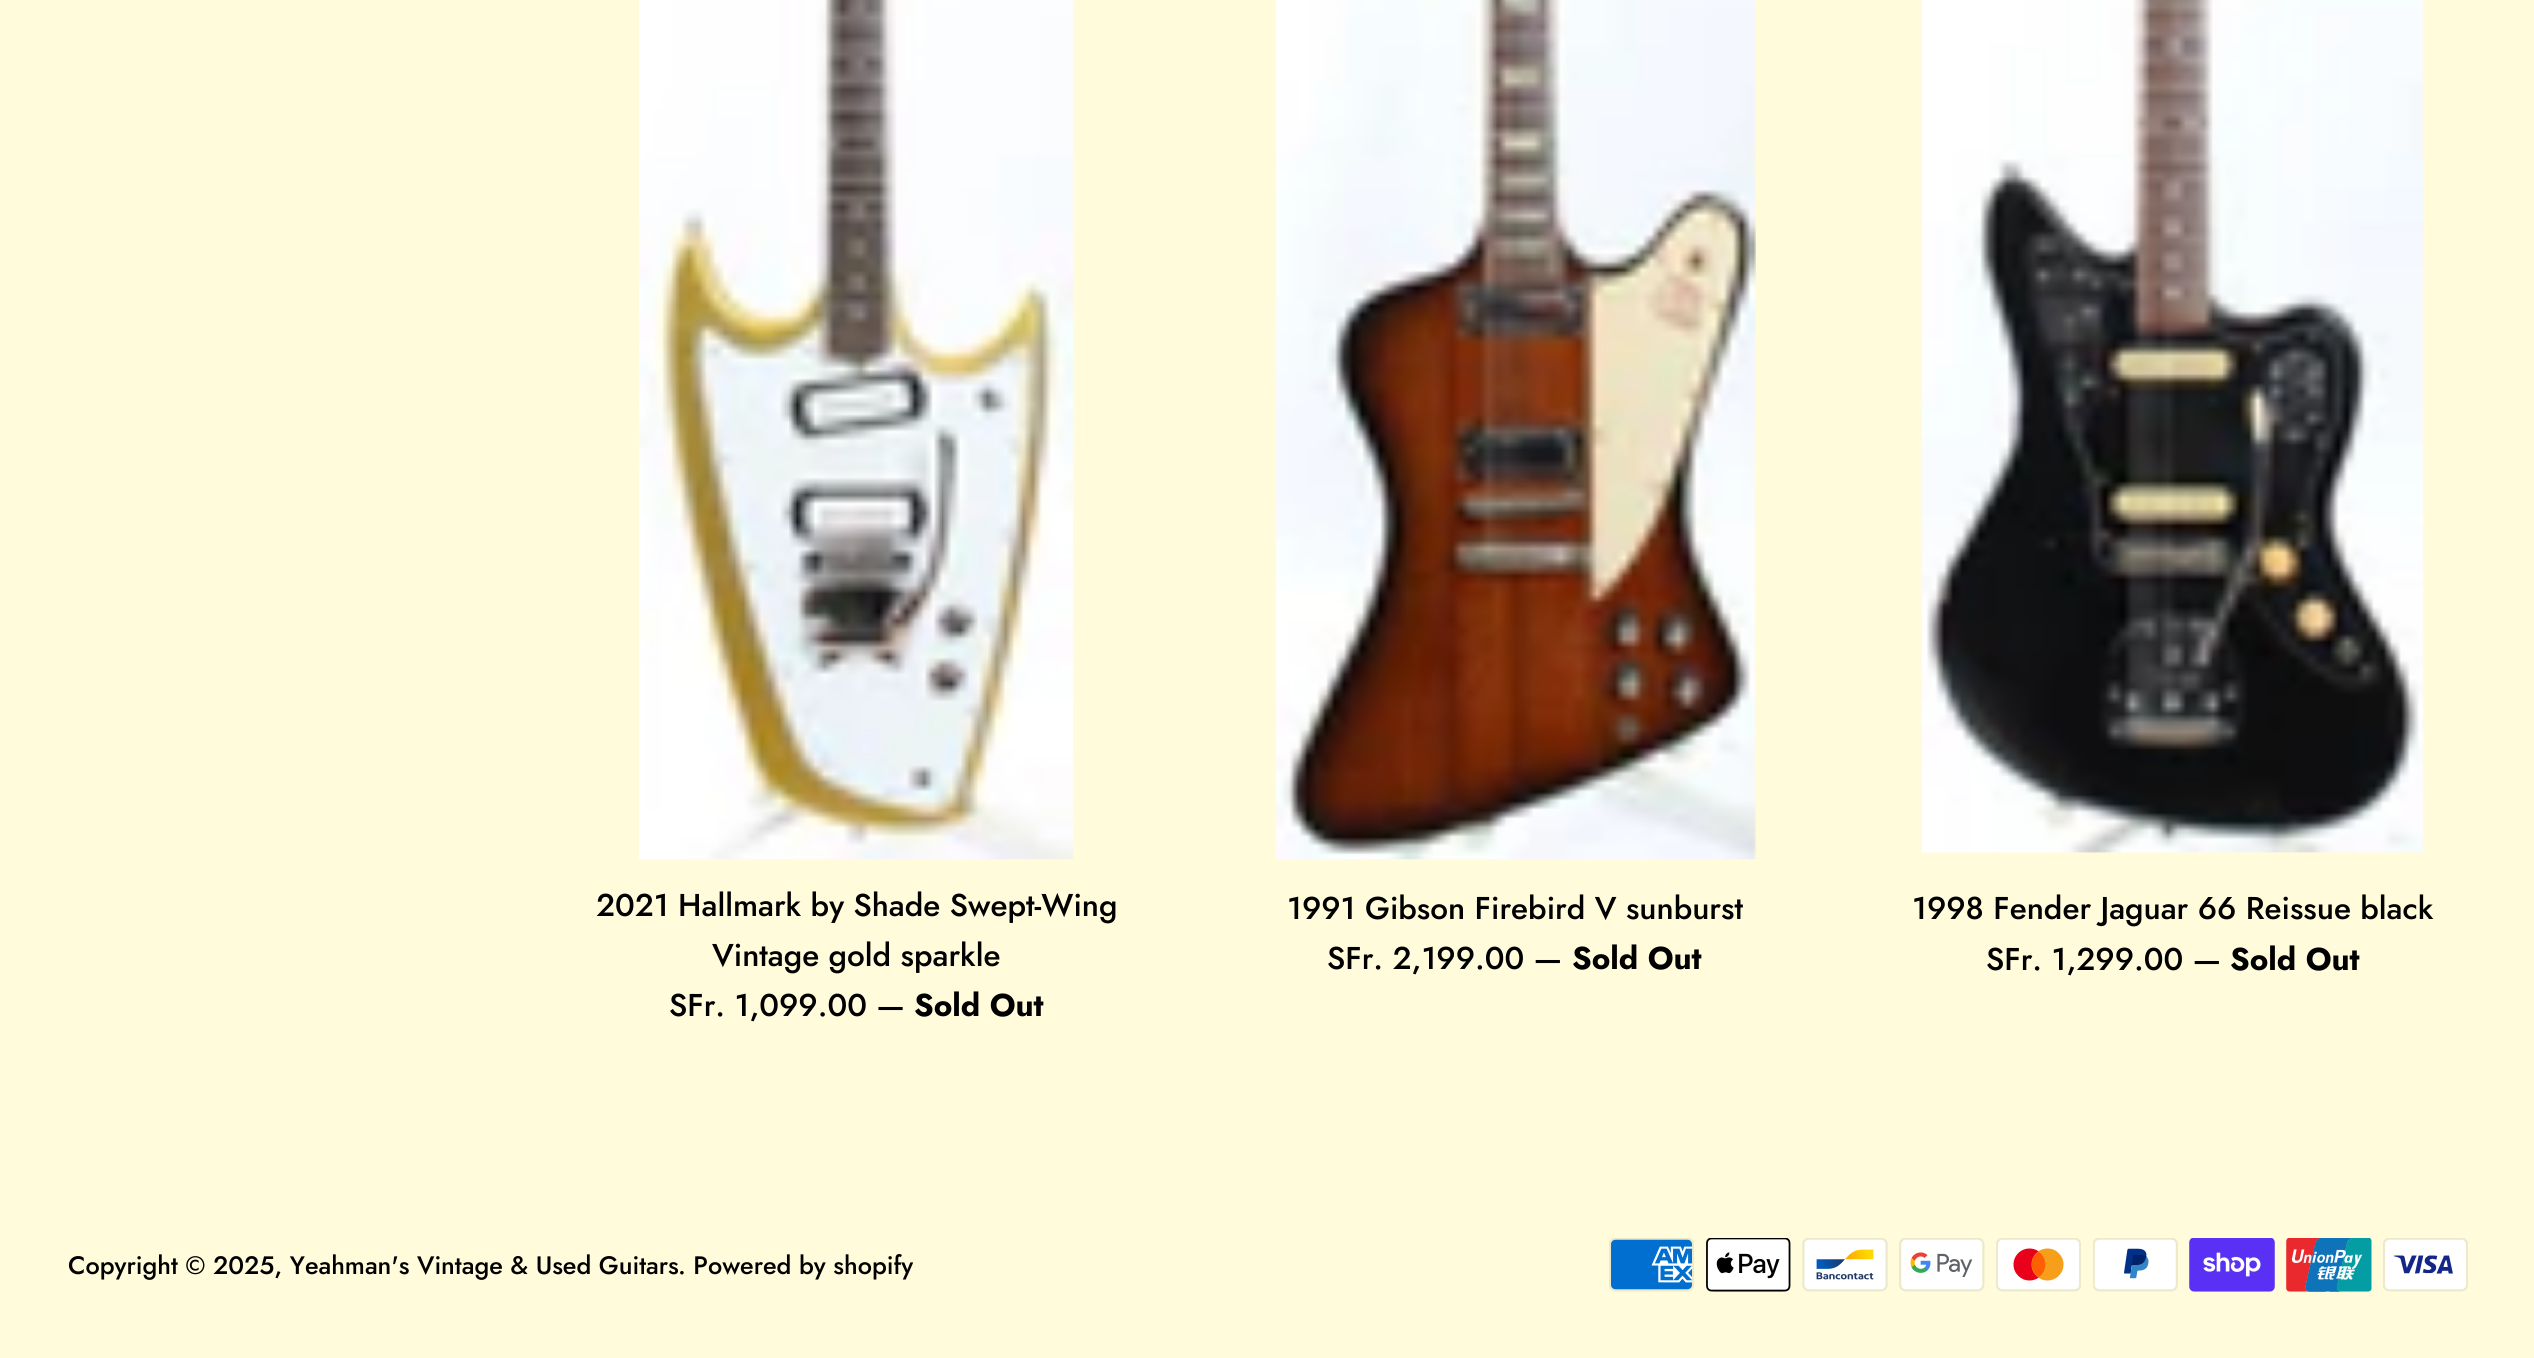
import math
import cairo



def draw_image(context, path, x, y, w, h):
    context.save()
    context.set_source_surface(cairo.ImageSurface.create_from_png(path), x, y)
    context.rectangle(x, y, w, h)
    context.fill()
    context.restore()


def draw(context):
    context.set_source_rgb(1, 251 / 255, 219 / 255)
    context.paint()
    draw_image(context, "images/1.png", 639, 0, 435, 860)
    draw_image(context, "images/2.png", 1275, 0, 481, 860)
    draw_image(context, "images/3.png", 1922, 0, 502, 853)
    draw_image(context, "images/4.png", 1609, 1238, 85, 54)
    draw_image(context, "images/5.png", 1706, 1238, 85, 54)
    draw_image(context, "images/6.png", 1802, 1238, 86, 54)
    draw_image(context, "images/7.png", 1899, 1238, 86, 54)
    draw_image(context, "images/8.png", 1996, 1238, 85, 54)
    draw_image(context, "images/9.png", 2093, 1238, 85, 54)
    draw_image(context, "images/10.png", 2189, 1238, 86, 54)
    draw_image(context, "images/11.png", 2286, 1238, 86, 54)
    draw_image(context, "images/12.png", 2383, 1238, 85, 54)
    context.select_font_face("Jost Medium")
    context.set_font_size(31.5)
    context.set_source_rgb(0, 0, 0)
    context.move_to(596, 916)
    context.show_text("2021 Hallmark by Shade Swept-Wing")
    context.move_to(712, 966)
    context.show_text("Vintage gold sparkle")
    context.move_to(669, 1016)
    context.show_text("SFr. 1,099.00 —")
    context.select_font_face("Jost", cairo.FontSlant.NORMAL, cairo.FontWeight.BOLD)
    context.move_to(914, 1016)
    context.show_text("Sold Out")
    context.select_font_face("Jost Medium")
    context.move_to(1287, 919)
    context.show_text("1991 Gibson Firebird V sunburst")
    context.move_to(1327, 969)
    context.show_text("SFr. 2,199.00 —")
    context.select_font_face("Jost", cairo.FontSlant.NORMAL, cairo.FontWeight.BOLD)
    context.move_to(1572, 969)
    context.show_text("Sold Out")
    context.select_font_face("Jost Medium")
    context.move_to(1912, 919)
    context.show_text("1998 Fender Jaguar 66 Reissue black")
    context.move_to(1986, 970)
    context.show_text("SFr. 1,299.00 —")
    context.select_font_face("Jost", cairo.FontSlant.NORMAL, cairo.FontWeight.BOLD)
    context.move_to(2230, 970)
    context.show_text("Sold Out")
    context.select_font_face("Jost Medium")
    context.set_font_size(25.2)
    context.move_to(68, 1274)
    context.show_text("Copyright © 2025, Yeahman's Vintage & Used Guitars")
    context.move_to(678, 1274)
    context.show_text(". Powered by shopify")


surface = cairo.ImageSurface(cairo.Format.RGB24, 2534, 1358)
context = cairo.Context(surface)
options = cairo.FontOptions()
options.set_hint_metrics(cairo.HintMetrics.OFF)
options.set_hint_style(cairo.HintStyle.NONE)
context.set_font_options(options)
context.set_miter_limit(4)
draw(context)
surface.write_to_png("out.png")
